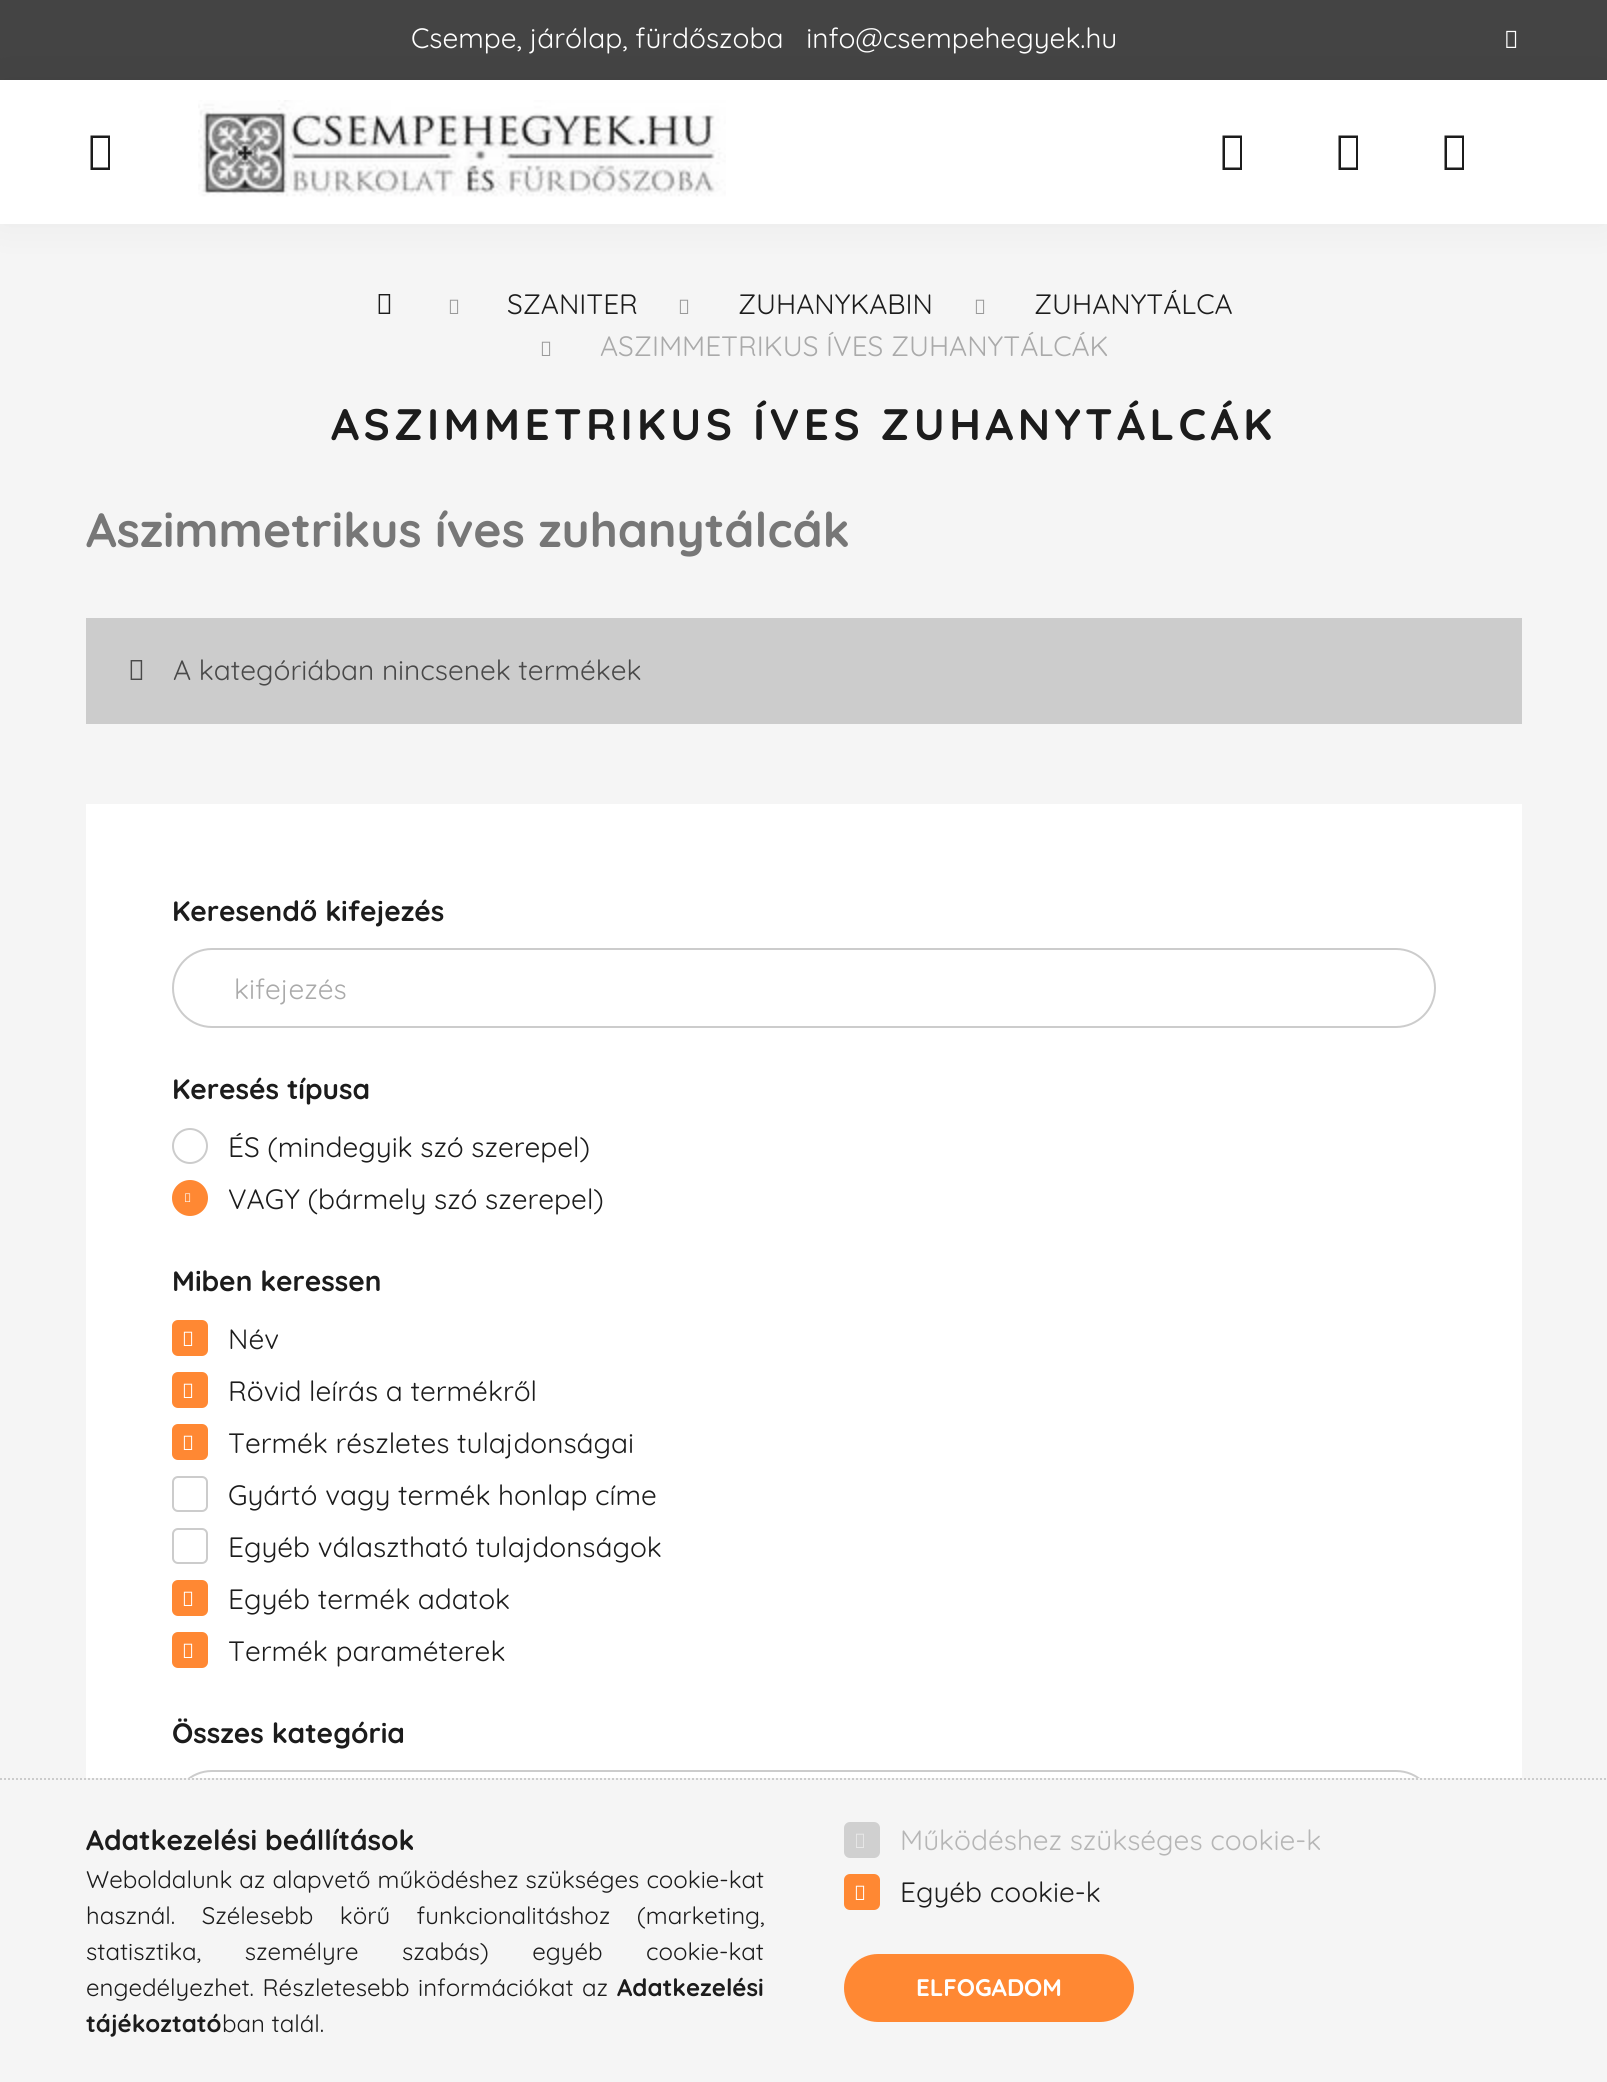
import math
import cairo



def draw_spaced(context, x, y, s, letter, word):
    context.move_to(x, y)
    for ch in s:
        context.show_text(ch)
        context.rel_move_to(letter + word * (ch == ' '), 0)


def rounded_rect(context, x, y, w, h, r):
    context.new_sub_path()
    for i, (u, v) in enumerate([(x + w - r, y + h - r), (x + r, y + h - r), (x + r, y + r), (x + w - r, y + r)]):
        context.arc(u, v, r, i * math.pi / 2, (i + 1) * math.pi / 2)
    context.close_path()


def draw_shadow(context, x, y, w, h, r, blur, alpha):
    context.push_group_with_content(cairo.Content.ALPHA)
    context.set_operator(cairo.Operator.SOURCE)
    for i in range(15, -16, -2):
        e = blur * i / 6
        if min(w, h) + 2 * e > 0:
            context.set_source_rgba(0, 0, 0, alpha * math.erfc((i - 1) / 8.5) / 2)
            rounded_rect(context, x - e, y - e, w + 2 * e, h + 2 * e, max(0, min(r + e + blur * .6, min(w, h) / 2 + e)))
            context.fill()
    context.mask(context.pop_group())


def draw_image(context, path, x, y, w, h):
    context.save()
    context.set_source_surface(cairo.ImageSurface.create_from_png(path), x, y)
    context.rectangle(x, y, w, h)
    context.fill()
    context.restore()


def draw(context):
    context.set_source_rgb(245 / 255, 245 / 255, 245 / 255)
    context.paint()
    context.set_source_rgb(68 / 255, 68 / 255, 68 / 255)
    context.rectangle(0, 0, 1607, 80)
    context.fill()
    draw_image(context, "images/2.png", 1506, 30, 11, 18)
    context.set_source_rgb(0, 0, 0)
    draw_shadow(context, 0, 80, 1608, 144, 0, 20, 0.05)
    context.set_source_rgb(1, 1, 1)
    context.rectangle(0, 80, 1607, 144)
    context.fill()
    context.set_source_rgb(28 / 255, 28 / 255, 28 / 255)
    context.new_path()
    context.move_to(90.5, 170)
    context.line_to(90.5, 135.5)
    context.line_to(110, 135.5)
    context.line_to(110, 170)
    context.close_path()
    context.move_to(93, 167.5)
    context.line_to(108, 167.5)
    context.line_to(108, 138)
    context.line_to(93, 138)
    context.close_path()
    context.fill()
    draw_image(context, "images/1.png", 198, 100, 528, 97)
    context.new_path()
    context.move_to(1222.5, 170)
    context.line_to(1222.5, 135.5)
    context.line_to(1242, 135.5)
    context.line_to(1242, 170)
    context.close_path()
    context.move_to(1225, 167.5)
    context.line_to(1240, 167.5)
    context.line_to(1240, 138)
    context.line_to(1225, 138)
    context.close_path()
    context.fill()
    context.new_path()
    context.move_to(1338.5, 170)
    context.line_to(1338.5, 135.5)
    context.line_to(1358, 135.5)
    context.line_to(1358, 170)
    context.close_path()
    context.move_to(1341, 167.5)
    context.line_to(1356, 167.5)
    context.line_to(1356, 138)
    context.line_to(1341, 138)
    context.close_path()
    context.fill()
    context.new_path()
    context.move_to(1444.5, 170)
    context.line_to(1444.5, 135.5)
    context.line_to(1464, 135.5)
    context.line_to(1464, 170)
    context.close_path()
    context.move_to(1447, 167.5)
    context.line_to(1462, 167.5)
    context.line_to(1462, 138)
    context.line_to(1447, 138)
    context.close_path()
    context.fill()
    draw_image(context, "images/3.png", 378, 294, 13, 20)
    draw_image(context, "images/4.png", 449, 299, 10, 15)
    draw_image(context, "images/4.png", 679, 299, 10, 15)
    draw_image(context, "images/4.png", 975, 299, 10, 15)
    draw_image(context, "images/4.png", 541, 341, 10, 15)
    context.set_source_rgb(204 / 255, 204 / 255, 204 / 255)
    context.rectangle(86, 618, 1436, 106)
    context.fill()
    draw_image(context, "images/5.png", 130, 660, 13, 20)
    context.set_source_rgb(1, 1, 1)
    context.rectangle(86, 804, 1436, 974)
    context.fill()
    rounded_rect(context, 173, 949, 1262, 78, 39)
    context.set_source_rgb(204 / 255, 204 / 255, 204 / 255)
    context.stroke()
    context.arc(190, 1146, 17, 0, 2 * math.pi)
    context.stroke()
    context.set_source_rgb(1, 136 / 255, 51 / 255)
    context.arc(190, 1198, 17, 0, 2 * math.pi)
    context.fill_preserve()
    context.stroke()
    draw_image(context, "images/6.png", 185, 1193, 6, 9)
    rounded_rect(context, 173, 1321, 34, 34, 5)
    context.fill_preserve()
    context.stroke()
    draw_image(context, "images/7.png", 183, 1331, 10, 15)
    rounded_rect(context, 173, 1373, 34, 34, 5)
    context.fill_preserve()
    context.stroke()
    draw_image(context, "images/7.png", 183, 1383, 10, 15)
    rounded_rect(context, 173, 1425, 34, 34, 5)
    context.fill_preserve()
    context.stroke()
    draw_image(context, "images/7.png", 183, 1435, 10, 15)
    rounded_rect(context, 173, 1477, 34, 34, 5)
    context.set_source_rgb(204 / 255, 204 / 255, 204 / 255)
    context.stroke()
    rounded_rect(context, 173, 1529, 34, 34, 5)
    context.stroke()
    context.set_source_rgb(1, 136 / 255, 51 / 255)
    rounded_rect(context, 173, 1581, 34, 34, 5)
    context.fill_preserve()
    context.stroke()
    draw_image(context, "images/7.png", 183, 1591, 10, 15)
    rounded_rect(context, 173, 1633, 34, 34, 5)
    context.fill_preserve()
    context.stroke()
    draw_image(context, "images/7.png", 183, 1643, 10, 15)
    rounded_rect(context, 173, 1771, 1262, 78, 39)
    context.set_source_rgb(204 / 255, 204 / 255, 204 / 255)
    context.stroke()
    context.set_source_rgb(245 / 255, 245 / 255, 245 / 255)
    context.rectangle(172, 1778, 1264, 72)
    context.fill()
    context.new_path()
    context.move_to(0, 1779)
    context.line_to(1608, 1779)
    context.set_source_rgb(204 / 255, 204 / 255, 204 / 255)
    context.set_dash([2, 2])
    context.stroke()
    context.set_source_rgb(208 / 255, 208 / 255, 208 / 255)
    rounded_rect(context, 845, 1823, 34, 34, 5)
    context.fill_preserve()
    context.set_dash([])
    context.stroke()
    draw_image(context, "images/8.png", 856, 1833, 8, 15)
    context.set_source_rgb(1, 136 / 255, 51 / 255)
    rounded_rect(context, 845, 1875, 34, 34, 5)
    context.fill_preserve()
    context.stroke()
    draw_image(context, "images/7.png", 855, 1885, 10, 15)
    rounded_rect(context, 844, 1954, 290, 68, 34)
    context.fill()
    context.select_font_face("Quicksand")
    context.set_font_size(28)
    context.set_source_rgb(1, 1, 1)
    context.move_to(411, 48)
    context.show_text("Csempe, járólap, fürdőszoba   info@csempehegyek.hu")
    context.set_source_rgb(28 / 255, 28 / 255, 28 / 255)
    context.move_to(507, 314)
    context.show_text("SZANITER")
    context.move_to(738, 314)
    context.show_text("ZUHANYKABIN")
    context.move_to(1034, 314)
    context.show_text("ZUHANYTÁLCA")
    context.set_source_rgb(170 / 255, 170 / 255, 170 / 255)
    context.move_to(600, 356)
    context.show_text("ASZIMMETRIKUS ÍVES ZUHANYTÁLCÁK")
    context.select_font_face("Quicksand", cairo.FontSlant.NORMAL, cairo.FontWeight.BOLD)
    context.set_font_size(44)
    context.set_source_rgb(28 / 255, 28 / 255, 28 / 255)
    draw_spaced(context, 331, 440, "ASZIMMETRIKUS ÍVES ZUHANYTÁLCÁK", 4.4, 0)
    context.set_font_size(48)
    context.set_source_rgb(119 / 255, 119 / 255, 119 / 255)
    context.move_to(86, 547)
    context.show_text("Aszimmetrikus íves zuhanytálcák")
    context.select_font_face("Quicksand")
    context.set_font_size(28)
    context.set_source_rgb(73 / 255, 73 / 255, 73 / 255)
    context.move_to(173, 680)
    context.show_text("A kategóriában nincsenek termékek")
    context.select_font_face("Quicksand", cairo.FontSlant.NORMAL, cairo.FontWeight.BOLD)
    context.set_source_rgb(28 / 255, 28 / 255, 28 / 255)
    context.move_to(172, 921)
    context.show_text("Keresendő kifejezés")
    context.select_font_face("Quicksand")
    context.set_source_rgb(170 / 255, 170 / 255, 170 / 255)
    context.move_to(234, 999)
    context.show_text("kifejezés")
    context.select_font_face("Quicksand", cairo.FontSlant.NORMAL, cairo.FontWeight.BOLD)
    context.set_source_rgb(28 / 255, 28 / 255, 28 / 255)
    context.move_to(172, 1099)
    context.show_text("Keresés típusa")
    context.select_font_face("Quicksand")
    context.move_to(228, 1157)
    context.show_text("ÉS (mindegyik szó szerepel)")
    context.move_to(228, 1209)
    context.show_text("VAGY (bármely szó szerepel)")
    context.select_font_face("Quicksand", cairo.FontSlant.NORMAL, cairo.FontWeight.BOLD)
    context.move_to(172, 1291)
    context.show_text("Miben keressen")
    context.select_font_face("Quicksand")
    context.move_to(228, 1349)
    context.show_text("Név")
    context.move_to(228, 1401)
    context.show_text("Rövid leírás a termékről")
    context.move_to(228, 1453)
    context.show_text("Termék részletes tulajdonságai")
    context.move_to(228, 1505)
    context.show_text("Gyártó vagy termék honlap címe")
    context.move_to(228, 1557)
    context.show_text("Egyéb választható tulajdonságok")
    context.move_to(228, 1609)
    context.show_text("Egyéb termék adatok")
    context.move_to(228, 1661)
    context.show_text("Termék paraméterek")
    context.select_font_face("Quicksand", cairo.FontSlant.NORMAL, cairo.FontWeight.BOLD)
    context.move_to(172, 1743)
    context.show_text("Összes kategória")
    context.move_to(86, 1850)
    context.show_text("Adatkezelési beállítások")
    context.select_font_face("Quicksand")
    context.set_font_size(24)
    draw_spaced(context, 86, 1888, "Weboldalunk az alapvető működéshez szükséges cookie-kat", 0, 0.5)
    draw_spaced(context, 86, 1924, "használ. Szélesebb körű funkcionalitáshoz (marketing,", 0, 20)
    draw_spaced(context, 86, 1960, "statisztika, személyre szabás) egyéb cookie-kat", 0, 37)
    draw_spaced(context, 86, 1996, "engedélyezhet. Részletesebb információkat az", 0, 2)
    context.select_font_face("Quicksand", cairo.FontSlant.NORMAL, cairo.FontWeight.BOLD)
    context.move_to(617, 1996)
    context.show_text("Adatkezelési")
    context.move_to(86, 2032)
    context.show_text("tájékoztató")
    context.select_font_face("Quicksand")
    context.move_to(222, 2032)
    context.show_text("ban talál.")
    context.set_font_size(28)
    context.set_source_rgb(182 / 255, 182 / 255, 182 / 255)
    context.move_to(900, 1850)
    context.show_text("Működéshez szükséges cookie-k")
    context.set_source_rgb(28 / 255, 28 / 255, 28 / 255)
    context.move_to(900, 1902)
    context.show_text("Egyéb cookie-k")
    context.select_font_face("Quicksand", cairo.FontSlant.NORMAL, cairo.FontWeight.BOLD)
    context.set_font_size(24)
    context.set_source_rgb(1, 1, 1)
    context.move_to(916, 1996)
    context.show_text("ELFOGADOM")


surface = cairo.ImageSurface(cairo.Format.RGB24, 1607, 2082)
context = cairo.Context(surface)
options = cairo.FontOptions()
options.set_hint_metrics(cairo.HintMetrics.OFF)
options.set_hint_style(cairo.HintStyle.NONE)
context.set_font_options(options)
context.set_miter_limit(4)
draw(context)
surface.write_to_png("out.png")
